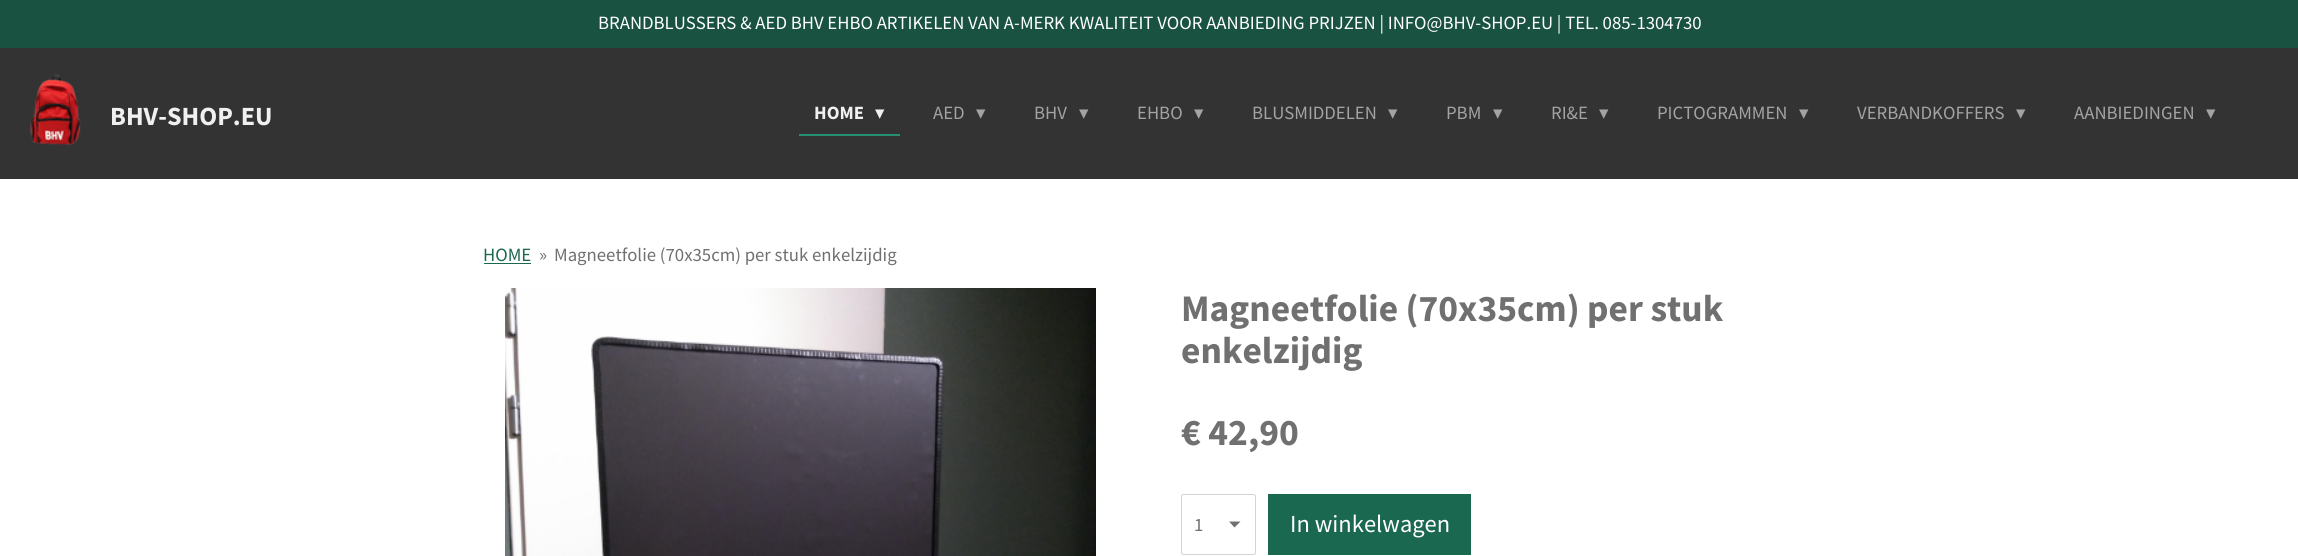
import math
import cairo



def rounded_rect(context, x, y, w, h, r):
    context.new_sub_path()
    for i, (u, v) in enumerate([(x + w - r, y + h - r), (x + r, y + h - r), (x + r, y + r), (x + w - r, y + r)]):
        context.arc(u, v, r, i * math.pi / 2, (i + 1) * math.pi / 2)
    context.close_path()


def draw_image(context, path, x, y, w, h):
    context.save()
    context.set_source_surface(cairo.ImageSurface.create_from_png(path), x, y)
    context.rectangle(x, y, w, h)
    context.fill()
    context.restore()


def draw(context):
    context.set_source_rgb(51 / 255, 51 / 255, 51 / 255)
    context.paint()
    context.set_source_rgb(25 / 255, 82 / 255, 65 / 255)
    context.rectangle(0, 0, 2298, 48)
    context.fill()
    draw_image(context, "images/1.png", 30, 74, 52, 72)
    context.set_source_rgb(38 / 255, 144 / 255, 113 / 255)
    context.rectangle(799, 134, 101, 2)
    context.fill()
    context.set_source_rgb(1, 1, 1)
    context.rectangle(0, 179, 2298, 377)
    context.fill()
    context.set_source_rgb(27 / 255, 104 / 255, 81 / 255)
    context.rectangle(484, 263, 47, 1)
    context.fill()
    draw_image(context, "images/2.png", 505, 288, 591, 268)
    context.set_source_rgb(112 / 255, 112 / 255, 112 / 255)
    context.new_path()
    context.move_to(1234.5, 527.5)
    context.line_to(1229, 521.5)
    context.line_to(1240.5, 521.5)
    context.close_path()
    context.fill()
    rounded_rect(context, 1181.5, 494.5, 74, 60, 2)
    context.set_source_rgb(211 / 255, 211 / 255, 211 / 255)
    context.set_line_width(1)
    context.stroke()
    context.set_source_rgb(27 / 255, 104 / 255, 81 / 255)
    context.rectangle(1268, 494, 203, 61)
    context.fill()
    context.select_font_face("Source Sans Pro")
    context.set_font_size(18.75)
    context.set_source_rgb(1, 1, 1)
    context.move_to(598, 29)
    context.show_text("BRANDBLUSSERS & AED BHV EHBO ARTIKELEN VAN A-MERK KWALITEIT VOOR AANBIEDING PRIJZEN | INFO@BHV-SHOP.EU | TEL. 085-1304730")
    context.select_font_face("Source Sans Pro", cairo.FontSlant.NORMAL, cairo.FontWeight.BOLD)
    context.set_font_size(26.25)
    context.set_source_rgb(240 / 255, 240 / 255, 240 / 255)
    context.move_to(110, 125)
    context.show_text("BHV-SHOP.EU")
    context.set_font_size(18.75)
    context.move_to(814, 119)
    context.show_text("HOME")
    context.select_font_face("DejaVu Sans")
    context.move_to(875, 119)
    context.show_text("▾")
    context.select_font_face("Source Sans Pro")
    context.set_source_rgb(163 / 255, 163 / 255, 163 / 255)
    context.move_to(933, 119)
    context.show_text("AED")
    context.select_font_face("DejaVu Sans")
    context.move_to(976, 119)
    context.show_text("▾")
    context.select_font_face("Source Sans Pro")
    context.move_to(1034, 119)
    context.show_text("BHV")
    context.select_font_face("DejaVu Sans")
    context.move_to(1079, 119)
    context.show_text("▾")
    context.select_font_face("Source Sans Pro")
    context.move_to(1137, 119)
    context.show_text("EHBO")
    context.select_font_face("DejaVu Sans")
    context.move_to(1194, 119)
    context.show_text("▾")
    context.select_font_face("Source Sans Pro")
    context.move_to(1252, 119)
    context.show_text("BLUSMIDDELEN")
    context.select_font_face("DejaVu Sans")
    context.move_to(1388, 119)
    context.show_text("▾")
    context.select_font_face("Source Sans Pro")
    context.move_to(1446, 119)
    context.show_text("PBM")
    context.select_font_face("DejaVu Sans")
    context.move_to(1493, 119)
    context.show_text("▾")
    context.select_font_face("Source Sans Pro")
    context.move_to(1551, 119)
    context.show_text("RI&E")
    context.select_font_face("DejaVu Sans")
    context.move_to(1599, 119)
    context.show_text("▾")
    context.select_font_face("Source Sans Pro")
    context.move_to(1657, 119)
    context.show_text("PICTOGRAMMEN")
    context.select_font_face("DejaVu Sans")
    context.move_to(1799, 119)
    context.show_text("▾")
    context.select_font_face("Source Sans Pro")
    context.move_to(1857, 119)
    context.show_text("VERBANDKOFFERS")
    context.select_font_face("DejaVu Sans")
    context.move_to(2016, 119)
    context.show_text("▾")
    context.select_font_face("Source Sans Pro")
    context.move_to(2074, 119)
    context.show_text("AANBIEDINGEN")
    context.select_font_face("DejaVu Sans")
    context.move_to(2206, 119)
    context.show_text("▾")
    context.select_font_face("Source Sans Pro")
    context.set_source_rgb(27 / 255, 104 / 255, 81 / 255)
    context.move_to(483, 261)
    context.show_text("HOME")
    context.set_source_rgb(112 / 255, 112 / 255, 112 / 255)
    context.move_to(539, 261)
    context.show_text("»")
    context.move_to(554, 261)
    context.show_text("Magneetfolie (70x35cm) per stuk enkelzijdig")
    context.select_font_face("Source Sans Pro", cairo.FontSlant.NORMAL, cairo.FontWeight.BOLD)
    context.set_font_size(37.5)
    context.move_to(1181, 321)
    context.show_text("Magneetfolie (70x35cm) per stuk")
    context.move_to(1181, 363)
    context.show_text("enkelzijdig")
    context.move_to(1181, 445)
    context.show_text("€ 42,90")
    context.select_font_face("Source Sans Pro")
    context.set_font_size(18.75)
    context.move_to(1194, 531)
    context.show_text("1")
    context.set_font_size(24.5)
    context.set_source_rgb(1, 1, 1)
    context.move_to(1290, 532)
    context.show_text("In winkelwagen")


surface = cairo.ImageSurface(cairo.Format.RGB24, 2298, 556)
context = cairo.Context(surface)
options = cairo.FontOptions()
options.set_hint_metrics(cairo.HintMetrics.OFF)
options.set_hint_style(cairo.HintStyle.NONE)
context.set_font_options(options)
context.set_miter_limit(4)
draw(context)
surface.write_to_png("out.png")
